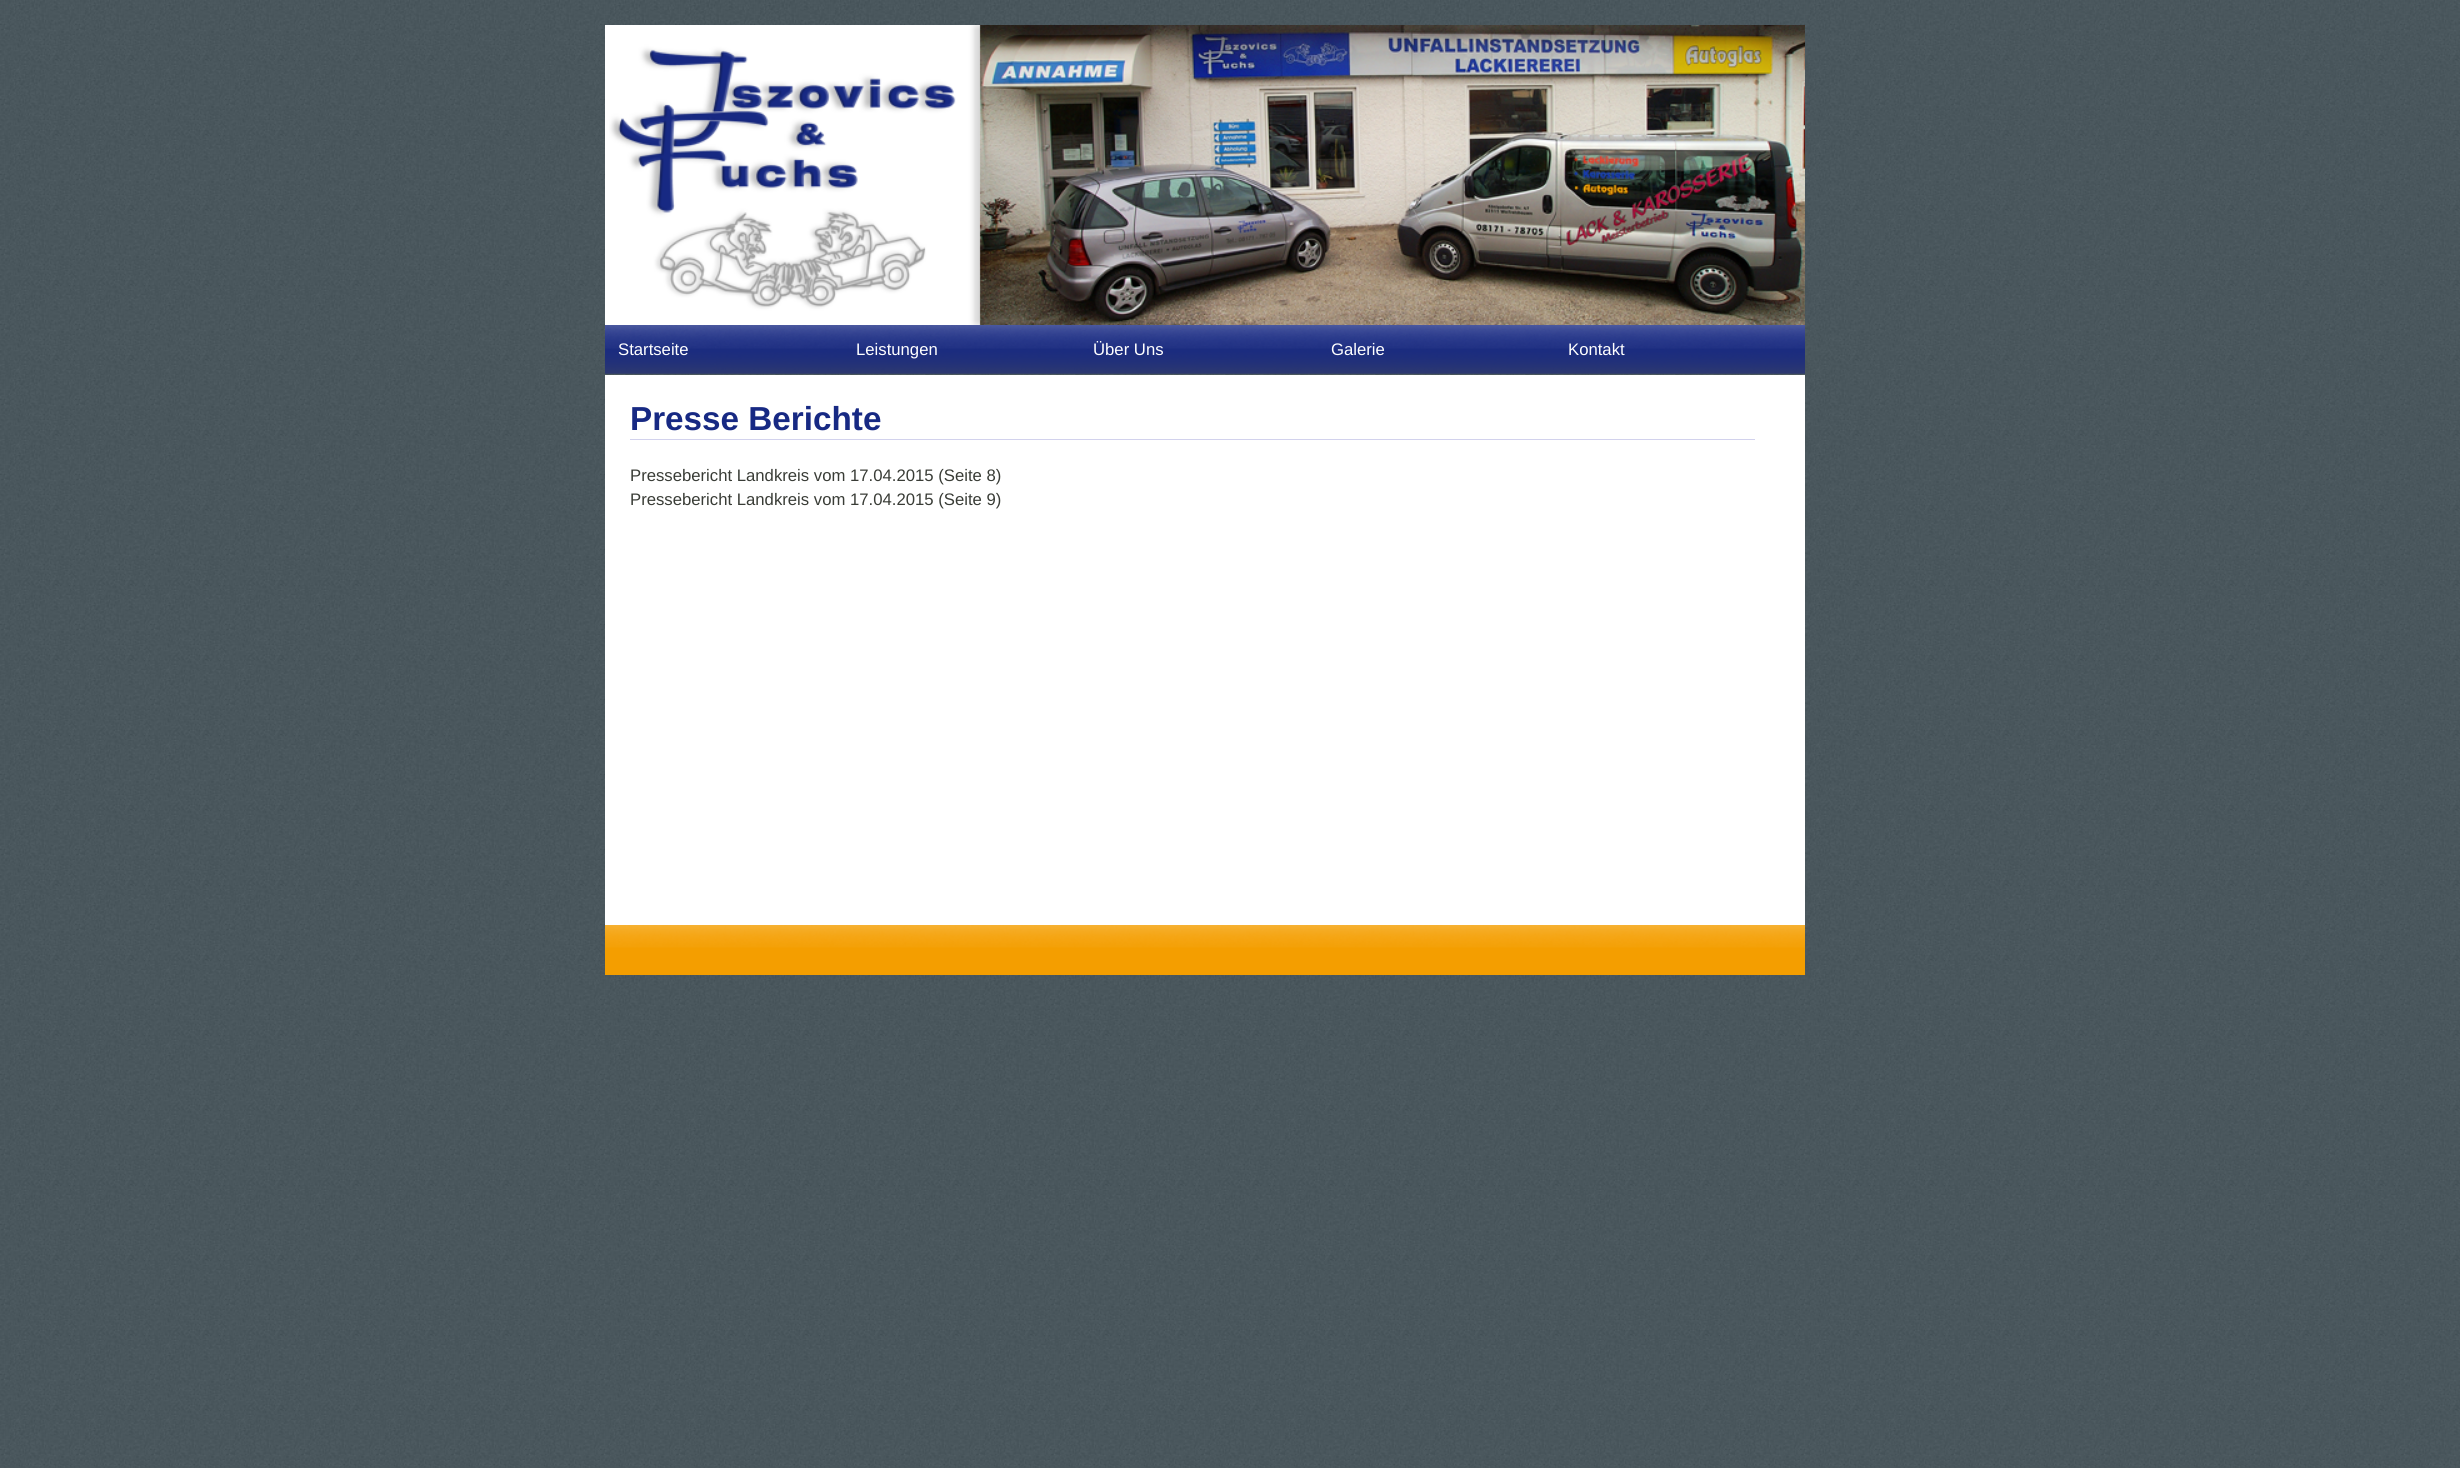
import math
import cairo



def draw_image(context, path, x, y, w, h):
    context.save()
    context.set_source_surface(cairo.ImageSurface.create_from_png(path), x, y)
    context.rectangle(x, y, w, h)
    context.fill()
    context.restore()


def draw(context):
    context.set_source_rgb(1, 1, 1)
    context.paint()
    draw_image(context, "images/1.png", 0, 0, 2460, 1468)
    context.set_source_rgb(1, 1, 1)
    context.rectangle(605, 25, 4, 300)
    context.fill()
    draw_image(context, "images/2.png", 609, 25, 1196, 300)
    draw_image(context, "images/3.png", 605, 325, 1200, 49)
    context.rectangle(605, 375, 1200, 550)
    context.fill()
    context.set_source_rgb(210 / 255, 210 / 255, 237 / 255)
    context.rectangle(630, 439, 1125, 1)
    context.fill()
    draw_image(context, "images/4.png", 605, 925, 1200, 50)
    context.select_font_face("Liberation Sans")
    context.set_font_size(16.7)
    context.set_source_rgb(1, 1, 1)
    context.move_to(618, 355)
    context.show_text("Startseite")
    context.move_to(856, 355)
    context.show_text("Leistungen")
    context.move_to(1093, 355)
    context.show_text("Über Uns")
    context.move_to(1331, 355)
    context.show_text("Galerie")
    context.move_to(1568, 355)
    context.show_text("Kontakt")
    context.select_font_face("Liberation Sans", cairo.FontSlant.NORMAL, cairo.FontWeight.BOLD)
    context.set_font_size(33.25)
    context.set_source_rgb(23 / 255, 41 / 255, 131 / 255)
    context.move_to(630, 430)
    context.show_text("Presse Berichte")
    context.select_font_face("Liberation Sans")
    context.set_font_size(16.7)
    context.set_source_rgb(57 / 255, 60 / 255, 54 / 255)
    context.move_to(630, 481)
    context.show_text("Pressebericht Landkreis vom 17.04.2015 (Seite 8)")
    context.move_to(630, 505)
    context.show_text("Pressebericht Landkreis vom 17.04.2015 (Seite 9)")


surface = cairo.ImageSurface(cairo.Format.RGB24, 2460, 1468)
context = cairo.Context(surface)
options = cairo.FontOptions()
options.set_hint_metrics(cairo.HintMetrics.OFF)
options.set_hint_style(cairo.HintStyle.NONE)
context.set_font_options(options)
context.set_miter_limit(4)
draw(context)
surface.write_to_png("out.png")
